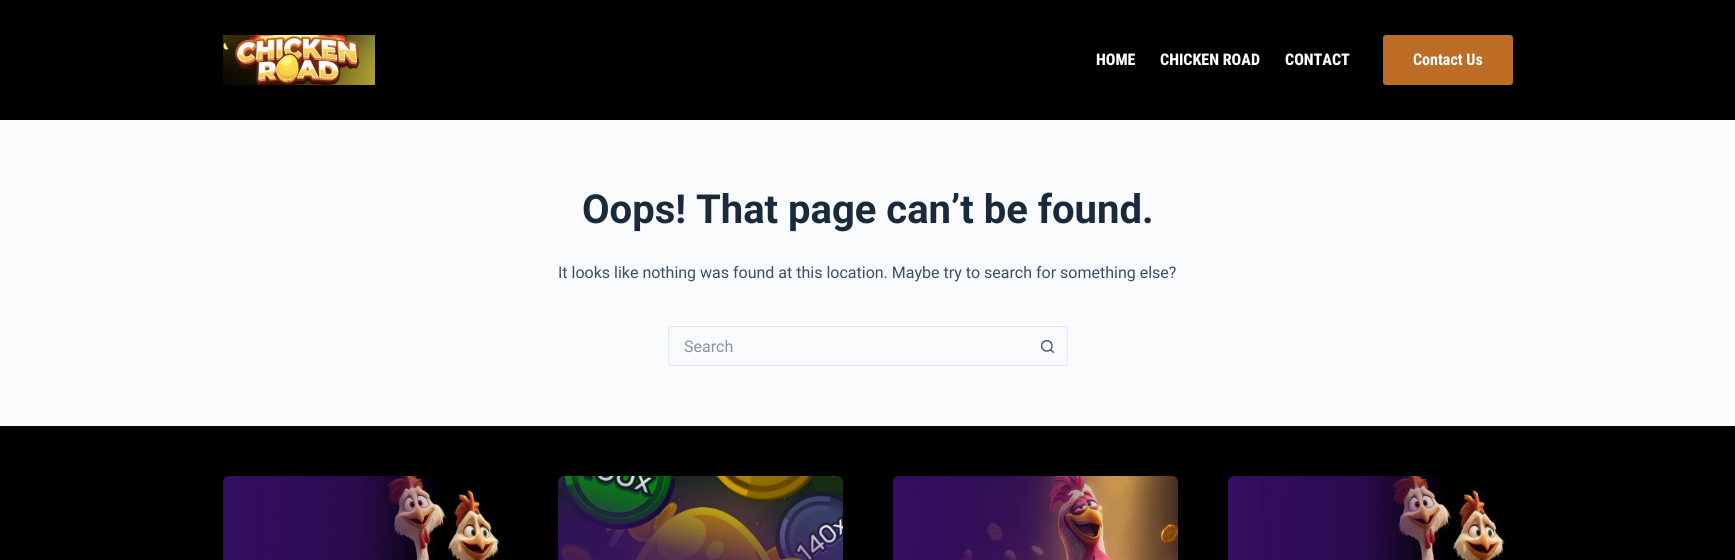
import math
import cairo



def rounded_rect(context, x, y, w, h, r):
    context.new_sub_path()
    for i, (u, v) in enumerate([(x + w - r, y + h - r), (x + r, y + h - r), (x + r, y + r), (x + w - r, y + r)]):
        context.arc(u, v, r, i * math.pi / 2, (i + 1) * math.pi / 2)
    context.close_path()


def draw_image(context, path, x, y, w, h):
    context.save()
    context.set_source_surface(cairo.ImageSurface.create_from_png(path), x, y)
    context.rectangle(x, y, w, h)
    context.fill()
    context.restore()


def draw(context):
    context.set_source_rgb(250 / 255, 251 / 255, 252 / 255)
    context.paint()
    context.set_source_rgb(0, 0, 0)
    context.rectangle(0, 0, 1735, 120)
    context.fill()
    draw_image(context, "images/1.png", 223, 35, 152, 50)
    context.set_source_rgb(188 / 255, 108 / 255, 37 / 255)
    rounded_rect(context, 1383, 35, 130, 50, 3)
    context.fill()
    context.set_source_rgb(225 / 255, 232 / 255, 237 / 255)
    context.set_fill_rule(cairo.FillRule.EVEN_ODD)
    context.new_path()
    context.move_to(671, 326)
    context.line_to(1028, 326)
    context.line_to(1028, 366)
    context.line_to(671, 366)
    context.curve_to(669, 366, 668, 365, 668, 363)
    context.line_to(668, 329)
    context.curve_to(668, 327, 669, 326, 671, 326)
    context.close_path()
    context.move_to(671, 327)
    context.line_to(1028, 327)
    context.line_to(1028, 365)
    context.line_to(670, 365)
    context.curve_to(668, 363, 669, 358, 669, 357)
    context.line_to(669, 329)
    context.line_to(670, 327)
    context.close_path()
    context.fill()
    context.new_path()
    context.move_to(1028, 326)
    context.line_to(1065, 326)
    context.curve_to(1067, 326, 1068, 327, 1068, 329)
    context.line_to(1068, 363)
    context.curve_to(1068, 365, 1067, 366, 1065, 366)
    context.line_to(1028, 366)
    context.close_path()
    context.move_to(1028, 327)
    context.line_to(1065, 327)
    context.curve_to(1066, 327, 1067, 328, 1067, 329)
    context.line_to(1067, 363)
    context.curve_to(1067, 364, 1066, 365, 1065, 365)
    context.line_to(1028, 365)
    context.close_path()
    context.fill()
    draw_image(context, "images/2.png", 1041, 340, 13, 13)
    context.set_source_rgb(0, 0, 0)
    context.rectangle(0, 426, 1735, 134)
    context.fill()
    draw_image(context, "images/3.png", 223, 476, 277, 84)
    draw_image(context, "images/4.png", 558, 476, 285, 84)
    draw_image(context, "images/5.png", 893, 476, 285, 84)
    draw_image(context, "images/3.png", 1228, 476, 277, 84)
    context.select_font_face("Roboto Condensed ExtraBold")
    context.set_font_size(16)
    context.set_source_rgb(1, 1, 1)
    context.move_to(1096, 65)
    context.show_text("HOME")
    context.move_to(1160, 65)
    context.show_text("CHICKEN ROAD")
    context.move_to(1285, 65)
    context.show_text("CONTACT")
    context.select_font_face("Roboto Condensed", cairo.FontSlant.NORMAL, cairo.FontWeight.BOLD)
    context.move_to(1413, 65)
    context.show_text("Contact Us")
    context.select_font_face("Roboto", cairo.FontSlant.NORMAL, cairo.FontWeight.BOLD)
    context.set_font_size(40)
    context.set_source_rgb(25 / 255, 42 / 255, 61 / 255)
    context.move_to(582, 223)
    context.show_text("Oops! That page can’t be found.")
    context.select_font_face("Roboto")
    context.set_font_size(16)
    context.set_source_rgb(58 / 255, 79 / 255, 102 / 255)
    context.move_to(558, 278)
    context.show_text("It looks like nothing was found at this location. Maybe try to search for something else?")
    context.set_source_rgb(135 / 255, 148 / 255, 162 / 255)
    context.move_to(684, 352)
    context.show_text("Search")


surface = cairo.ImageSurface(cairo.Format.RGB24, 1735, 560)
context = cairo.Context(surface)
options = cairo.FontOptions()
options.set_hint_metrics(cairo.HintMetrics.OFF)
options.set_hint_style(cairo.HintStyle.NONE)
context.set_font_options(options)
context.set_miter_limit(4)
draw(context)
surface.write_to_png("out.png")
